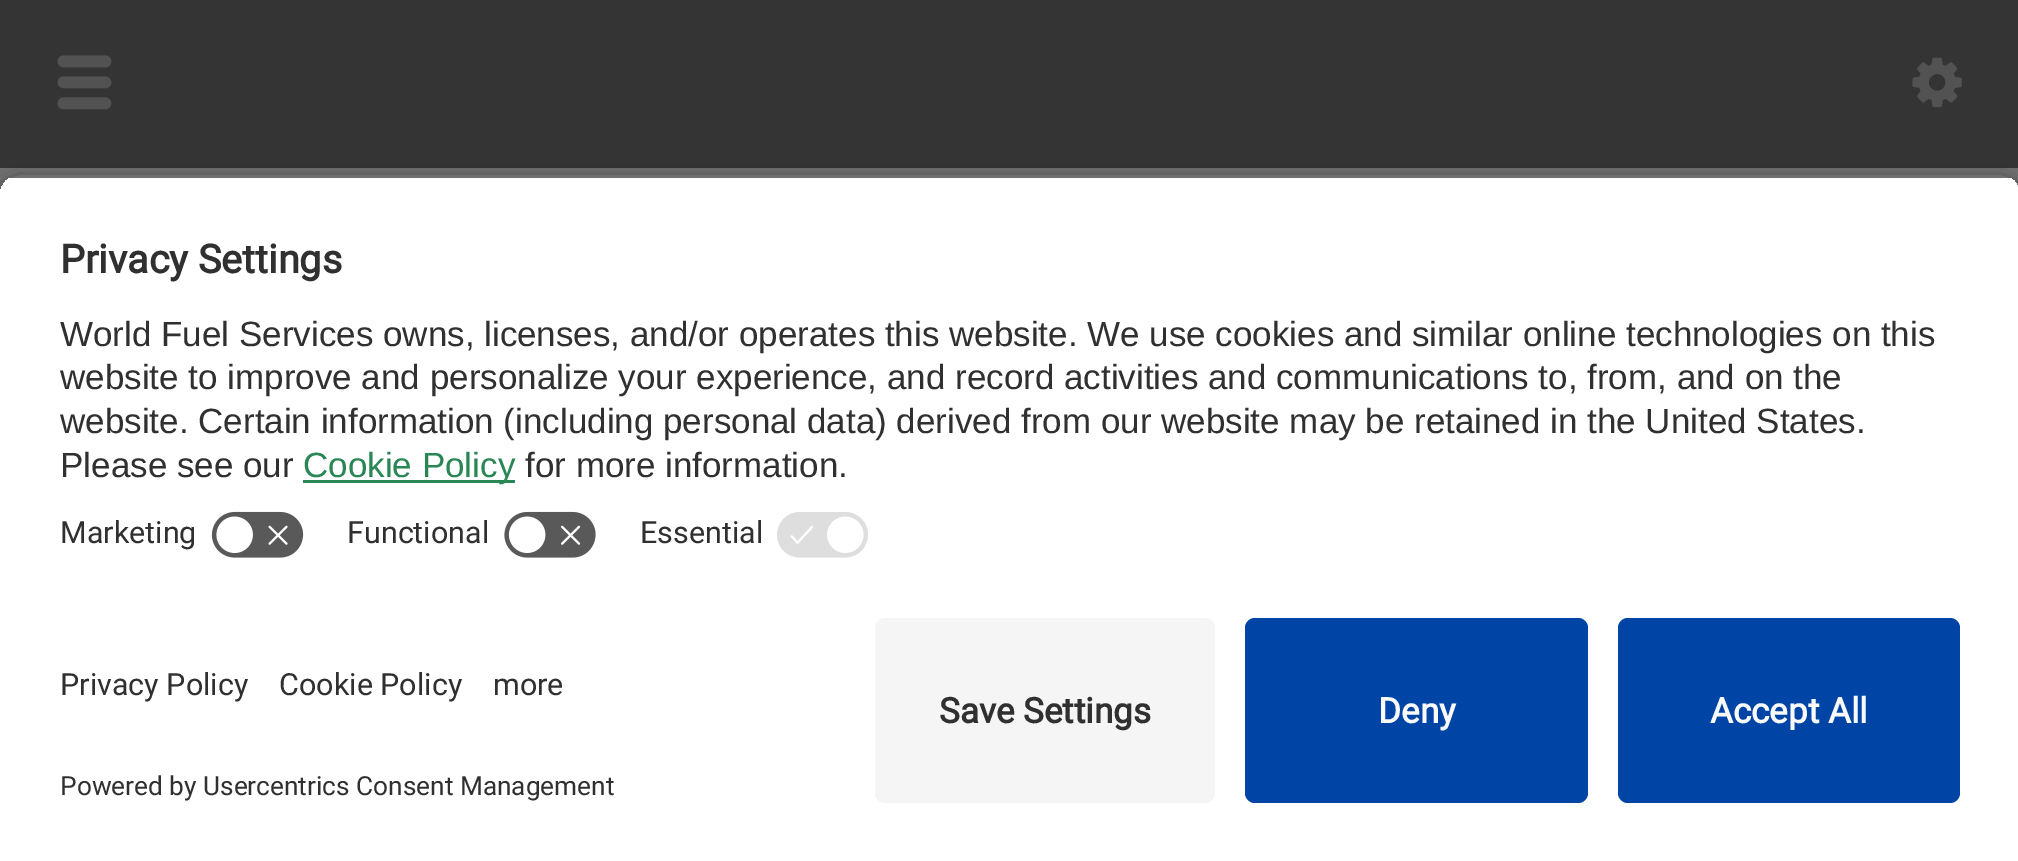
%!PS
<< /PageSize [2018 861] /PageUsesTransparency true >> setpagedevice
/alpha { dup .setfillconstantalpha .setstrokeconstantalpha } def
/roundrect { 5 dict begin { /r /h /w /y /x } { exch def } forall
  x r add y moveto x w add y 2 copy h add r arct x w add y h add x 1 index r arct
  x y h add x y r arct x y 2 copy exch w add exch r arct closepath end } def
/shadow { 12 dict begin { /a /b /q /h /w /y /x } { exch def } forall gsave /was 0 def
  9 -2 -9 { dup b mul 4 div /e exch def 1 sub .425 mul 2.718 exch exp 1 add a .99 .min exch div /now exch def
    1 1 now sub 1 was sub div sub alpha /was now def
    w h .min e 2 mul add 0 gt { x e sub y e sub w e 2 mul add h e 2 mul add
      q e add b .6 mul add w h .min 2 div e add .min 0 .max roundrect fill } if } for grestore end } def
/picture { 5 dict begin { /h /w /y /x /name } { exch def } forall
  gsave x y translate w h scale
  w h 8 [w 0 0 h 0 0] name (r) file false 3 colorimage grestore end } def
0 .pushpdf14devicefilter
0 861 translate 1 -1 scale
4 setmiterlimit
0.439 setgray
0 0 2018 861 rectfill
0.204 setgray
0 0 2018 168 rectfill
(img1.rgb) 57 55 55 55 picture
(img2.rgb) 1912 57 50 51 picture
gsave
newpath 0 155 moveto 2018 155 lineto 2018 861 lineto 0 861 lineto closepath 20 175 moveto 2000 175 lineto 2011 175 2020 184 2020 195 curveto 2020 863 lineto 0 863 lineto 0 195 lineto 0 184 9 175 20 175 curveto closepath eoclip newpath
0 setgray
0 183 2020 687 20 9 0.8 shadow
grestore
gsave
newpath 20 175 moveto 2000 175 lineto 2011 175 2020 184 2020 195 curveto 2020 598 lineto 0 598 lineto 0 195 lineto 0 184 9 175 20 175 curveto closepath clip newpath
1 setgray
0 178 2018 420 rectfill
0 178 2018 320 rectfill
grestore
/Roboto-Bold [39.5 0 0 -39.5 0 0] selectfont
0.188 setgray
60 273 moveto (Privacy Settings) show
/LiberationSans-Regular [35 0 0 -35 0 0] selectfont
60 346 moveto (World Fuel Services owns, licenses, and/or operates this website. We use cookies and similar online technologies on this) show
60 389 moveto (website to improve and personalize your experience, and record activities and communications to, from, and on the) show
60 433 moveto (website. Certain information \(including personal data\) derived from our website may be retained in the United States.) show
60 477 moveto (Please see our) show
0.161 0.525 0.333 setrgbcolor
303 480 212 3 rectfill
303 477 moveto (Cookie Policy) show
0.188 setgray
525 477 moveto (for more information.) show
/Roboto-Regular [30.5 0 0 -30.5 0 0] selectfont
60 543 moveto (Marketing) show
(img3.rgb) 211 511 93 47 picture
347 543 moveto (Functional) show
(img4.rgb) 504 511 92 47 picture
640 543 moveto (Essential) show
(img5.rgb) 777 512 91 46 picture
1 setgray
0 598 2018 263 rectfill
0.188 setgray
60 695 moveto (Privacy Policy) show
279 695 moveto (Cookie Policy) show
493 695 moveto (more) show
/Roboto-Regular [26.25 0 0 -26.25 0 0] selectfont
60 795 moveto (Powered by Usercentrics Consent Management) show
0.961 setgray
875 618 340 185 10 roundrect fill
/Roboto-Bold [35 0 0 -35 0 0] selectfont
0.188 setgray
939 723 moveto (Save Settings) show
0 0.271 0.647 setrgbcolor
1245 618 343 185 10 roundrect fill
0.98 setgray
1378 723 moveto (Deny) show
0 0.271 0.647 setrgbcolor
1618 618 342 185 10 roundrect fill
0.98 setgray
1710 723 moveto (Accept All) show
.poppdf14devicefilter showpage
